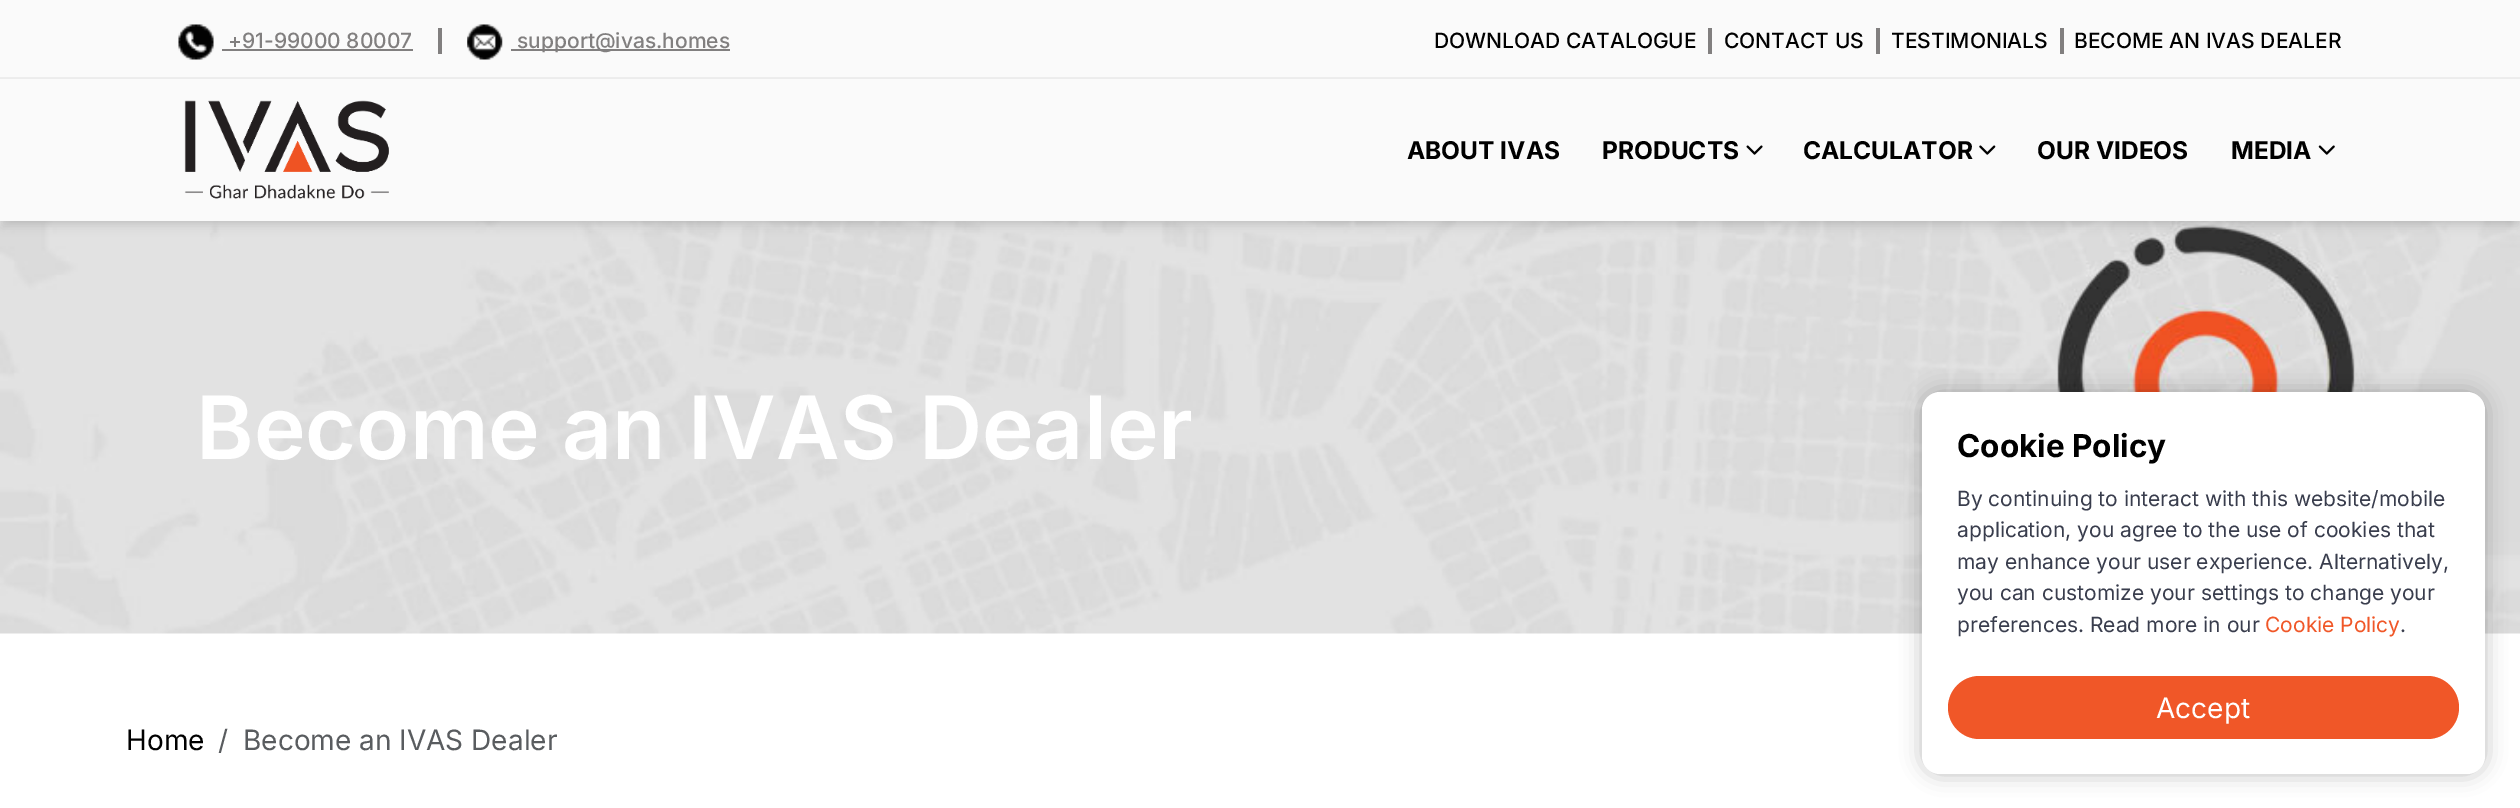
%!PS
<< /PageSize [2520 808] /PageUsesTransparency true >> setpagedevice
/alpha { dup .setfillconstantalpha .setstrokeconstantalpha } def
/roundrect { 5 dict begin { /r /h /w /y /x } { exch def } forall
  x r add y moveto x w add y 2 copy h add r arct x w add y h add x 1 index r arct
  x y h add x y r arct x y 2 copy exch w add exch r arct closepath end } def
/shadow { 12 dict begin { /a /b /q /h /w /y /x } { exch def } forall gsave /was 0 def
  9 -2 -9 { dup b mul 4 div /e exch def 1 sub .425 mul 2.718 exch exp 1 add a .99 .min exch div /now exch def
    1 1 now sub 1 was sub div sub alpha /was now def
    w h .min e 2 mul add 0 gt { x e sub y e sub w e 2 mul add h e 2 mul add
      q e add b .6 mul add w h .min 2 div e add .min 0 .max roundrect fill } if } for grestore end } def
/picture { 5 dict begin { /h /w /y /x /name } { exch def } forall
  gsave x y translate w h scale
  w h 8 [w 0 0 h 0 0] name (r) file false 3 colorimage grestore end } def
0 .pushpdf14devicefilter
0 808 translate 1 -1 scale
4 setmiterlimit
1 setgray
0 0 2520 808 rectfill
0.98 setgray
0 0 2520 77 rectfill
0.933 setgray
0 77 2520 2 rectfill
(img1.rgb) 178 24 36 36 picture
/Inter-Medium [21 0 0 -21 0 0] selectfont
0.506 0.498 0.498 setrgbcolor
228 48 moveto (+91-99000 80007) show
222 49 191 2 rectfill
438 28 4 26 rectfill
(img2.rgb) 467 24 36 36 picture
511 49 219 2 rectfill
517 48 moveto (support@ivas.homes) show
0 setgray
1434 48 moveto (DOWNLOAD CATALOGUE) show
0.506 0.498 0.498 setrgbcolor
1708 28 4 26 rectfill
0 setgray
1724 48 moveto (CONTACT US) show
0.506 0.498 0.498 setrgbcolor
1876 28 4 26 rectfill
0 setgray
1891 48 moveto (TESTIMONIALS) show
0.506 0.498 0.498 setrgbcolor
2060 28 4 26 rectfill
0 setgray
2074 48 moveto (BECOME AN IVAS DEALER) show
(img7.rgb) 0 221 2520 413 picture
2 84 2516 138 0 3.5 0.06 shadow
2 88 2516 138 0 5 0.1 shadow
0.98 setgray
0 79 2520 142 rectfill
(img3.rgb) 184 100 205 99 picture
/Inter-Bold [24.5 0 0 -24.5 0 0] selectfont
0 setgray
1407 159 moveto (ABOUT IVAS) show
1602 159 moveto (PRODUCTS) show
(img4.rgb) 1746 145 17 10 picture
1803 159 moveto (CALCULATOR) show
(img5.rgb) 1979 145 17 10 picture
2037 159 moveto (OUR VIDEOS) show
2231 159 moveto (MEDIA) show
(img6.rgb) 2318 145 17 10 picture
/Inter-SemiBold [87.5 0 0 -87.5 0 0] selectfont
1 setgray
196 459 moveto (Become an IVAS Dealer) show
0 setgray
1922 392 563 382 18 10.5 0.25 shadow
1 setgray
1922 392 563 382 18 roundrect fill
/Inter-Bold [31.5 0 0 -31.5 0 0] selectfont
0 setgray
1957 457 moveto (Cookie Policy) show
/Inter-Regular [21 0 0 -21 0 0] selectfont
0.224 0.239 0.302 setrgbcolor
1957 506 moveto (By continuing to interact with this website/mobile) show
1957 537 moveto (application, you agree to the use of cookies that) show
1957 569 moveto (may enhance your user experience. Alternatively,) show
1957 600 moveto (you can customize your settings to change your) show
1957 632 moveto (preferences. Read more in our) show
0.941 0.341 0.157 setrgbcolor
2265 632 moveto (Cookie Policy) show
0.224 0.239 0.302 setrgbcolor
2400 632 moveto (.) show
0.941 0.341 0.157 setrgbcolor
1948 676 511 63 31.5 roundrect fill
/Inter-Regular [28 0 0 -28 0 0] selectfont
1 setgray
2156 718 moveto (Accept) show
0 setgray
126 750 moveto (Home) show
0.349 0.361 0.373 setrgbcolor
218 750 moveto (/) show
243 750 moveto (Become an IVAS Dealer) show
.poppdf14devicefilter showpage
